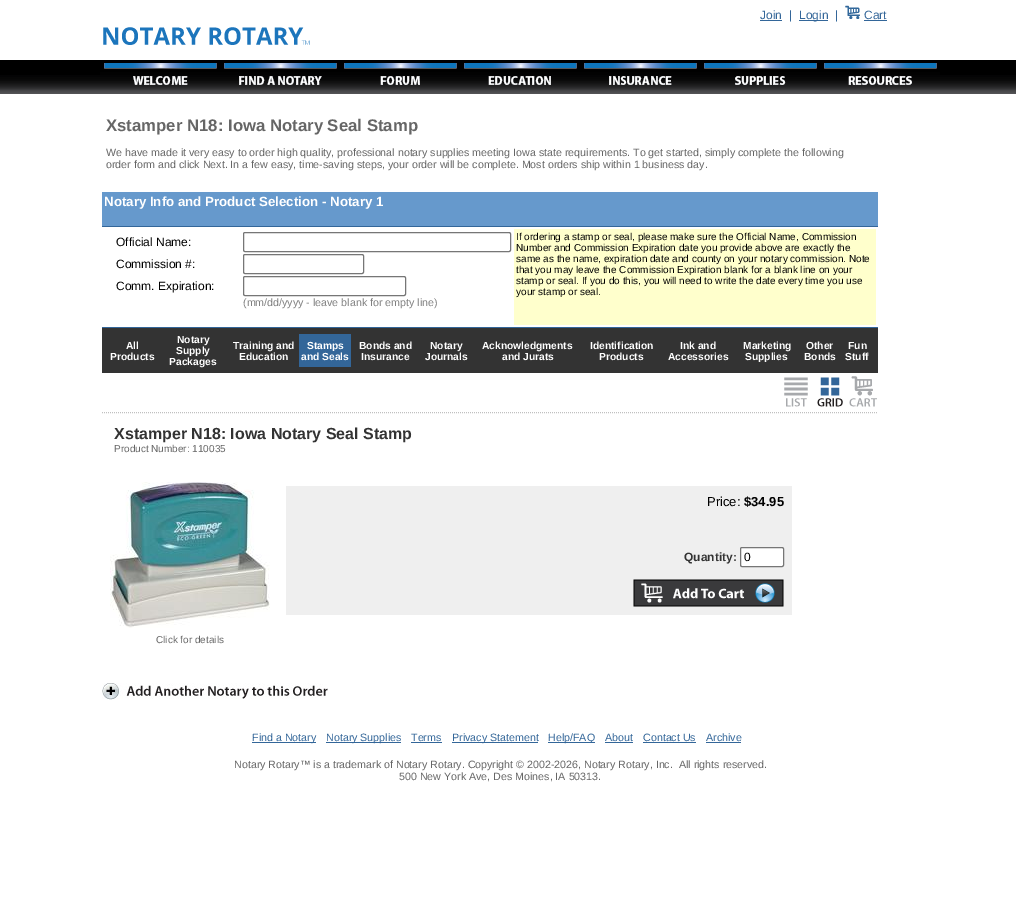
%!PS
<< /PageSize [1016 922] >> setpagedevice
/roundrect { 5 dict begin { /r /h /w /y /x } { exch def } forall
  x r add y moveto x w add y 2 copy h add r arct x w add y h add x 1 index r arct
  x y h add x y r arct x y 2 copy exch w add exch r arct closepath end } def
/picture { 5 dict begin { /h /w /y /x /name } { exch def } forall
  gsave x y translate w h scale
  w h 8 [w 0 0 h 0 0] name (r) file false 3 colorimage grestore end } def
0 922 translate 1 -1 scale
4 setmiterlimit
1 setgray
0 0 1016 922 rectfill
0 setgray
0 60 100 15 rectfill
(img1.rgb) 0 75 100 19 picture
/LiberationSans-Regular [12 0 0 -12 0 0] selectfont
0.2 0.4 0.6 setrgbcolor
760 19 moveto (Join) show
760 20 22 1 rectfill
789 19 moveto (|) show
799 20 29 1 rectfill
799 19 moveto (Login) show
835 19 moveto (|) show
(img2.rgb) 845 5 15 14 picture
864 19 moveto (Cart) show
864 20 23 1 rectfill
(img3.rgb) 103 27 207 18 picture
(img4.rgb) 100 60 120 34 picture
(img5.rgb) 220 60 120 34 picture
(img6.rgb) 340 60 120 34 picture
(img7.rgb) 460 60 120 34 picture
(img8.rgb) 580 60 120 34 picture
(img9.rgb) 700 60 120 34 picture
(img10.rgb) 820 60 120 34 picture
0 setgray
940 60 76 15 rectfill
(img11.rgb) 940 75 76 19 picture
/LiberationSans-Bold [16.75 0 0 -16.75 0 0] selectfont
0.4 setgray
106 131 moveto (Xstamper N18: Iowa Notary Seal Stamp) show
/LiberationSans-Regular [10.67 0 0 -10.67 0 0] selectfont
106 156 moveto (We have made it very easy to order high quality, professional notary supplies meeting Iowa state requirements. To get started, simply complete the following) show
106 168 moveto (order form and click Next. In a few easy, time-saving steps, your order will be complete. Most orders ship within 1 business day.) show
0.4 0.6 0.8 setrgbcolor
102 192 776 34 rectfill
0.2 0.4 0.6 setrgbcolor
102 226 776 1 rectfill
/LiberationSans-Bold [13.3 0 0 -13.3 0 0] selectfont
1 setgray
104 206 moveto (Notary Info and Product Selection - Notary 1) show
0.2 0.4 0.6 setrgbcolor
102 327 776 1 rectfill
/LiberationSans-Regular [12 0 0 -12 0 0] selectfont
0 setgray
116 246 moveto (Official Name:) show
0.463 setgray
243.5 232.5 267 19 1.5 roundrect stroke
0 setgray
116 268 moveto (Commission #:) show
0.463 setgray
243.5 254.5 120 19 1.5 roundrect stroke
0 setgray
116 290 moveto (Comm. Expiration:) show
0.463 setgray
243.5 276.5 162 19 1.5 roundrect stroke
/LiberationSans-Regular [10.67 0 0 -10.67 0 0] selectfont
0.502 setgray
243 306 moveto (\(mm/dd/yyyy - leave blank for empty line\)) show
1 1 0.8 setrgbcolor
514 229 362 96 rectfill
/LiberationSans-Regular [10 0 0 -10 0 0] selectfont
0 setgray
516 240 moveto (If ordering a stamp or seal, please make sure the Official Name, Commission) show
516 251 moveto (Number and Commission Expiration date you provide above are exactly the) show
516 262 moveto (same as the name, expiration date and county on your notary commission. Note) show
516 273 moveto (that you may leave the Commission Expiration blank for a blank line on your) show
516 284 moveto (stamp or seal. If you do this, you will need to write the date every time you use) show
516 295 moveto (your stamp or seal.) show
0.2 setgray
102 328 776 45 rectfill
/LiberationSans-Bold [10.25 0 0 -10.25 0 0] selectfont
1 setgray
126 349 moveto (All) show
110 360 moveto (Products) show
177 343 moveto (Notary) show
176 354 moveto (Supply) show
169 365 moveto (Packages) show
233 349 moveto (Training and) show
239 360 moveto (Education) show
0.2 0.4 0.6 setrgbcolor
299 334 52 33 rectfill
1 setgray
307 349 moveto (Stamps) show
301 360 moveto (and Seals) show
359 349 moveto (Bonds and) show
361 360 moveto (Insurance) show
430 349 moveto (Notary) show
425 360 moveto (Journals) show
482 349 moveto (Acknowledgments) show
502 360 moveto (and Jurats) show
590 349 moveto (Identification) show
599 360 moveto (Products) show
680 349 moveto (Ink and) show
668 360 moveto (Accessories) show
743 349 moveto (Marketing) show
745 360 moveto (Supplies) show
806 349 moveto (Other) show
804 360 moveto (Bonds) show
848 349 moveto (Fun) show
845 360 moveto (Stuff) show
(img12.rgb) 784 377 24 30 picture
(img13.rgb) 817 377 26 30 picture
(img14.rgb) 849 376 28 31 picture
0.753 setgray
[1 1] 0 setdash
newpath 800 412.5 moveto 878 412.5 lineto stroke
newpath 102 412.5 moveto 800 412.5 lineto stroke
/LiberationSans-Bold [16 0 0 -16 0 0] selectfont
0.2 setgray
114 439 moveto (Xstamper N18: Iowa Notary Seal Stamp) show
/LiberationSans-Regular [10 0 0 -10 0 0] selectfont
0.4 setgray
114 452 moveto (Product Number: 110035) show
0.937 setgray
286 486 506 129 rectfill
/LiberationSans-Regular [13 0 0 -13 0 0] selectfont
0 setgray
707 506 moveto (Price:) show
/LiberationSans-Bold [13 0 0 -13 0 0] selectfont
744 506 moveto ($34.95) show
/LiberationSans-Bold [12 0 0 -12 0 0] selectfont
0.2 setgray
684 561 moveto (Quantity:) show
1 setgray
740.5 547.5 43 19 1.5 roundrect gsave fill grestore
0.463 setgray
[] 0 setdash
stroke
/LiberationSans-Regular [12 0 0 -12 0 0] selectfont
0 setgray
744 561 moveto (0) show
(img15.rgb) 633 579 151 28 picture
(img16.rgb) 110 482 160 146 picture
/LiberationSans-Regular [10 0 0 -10 0 0] selectfont
0.4 setgray
156 643 moveto (Click for details) show
(img17.rgb) 102 683 226 17 picture
0.2 0.4 0.6 setrgbcolor
252 742 64 1 rectfill
/LiberationSans-Regular [10.67 0 0 -10.67 0 0] selectfont
252 741 moveto (Find a Notary) show
326 742 75 1 rectfill
326 741 moveto (Notary Supplies) show
411 741 moveto (Terms) show
411 742 31 1 rectfill
452 742 86 1 rectfill
452 741 moveto (Privacy Statement) show
548 742 47 1 rectfill
548 741 moveto (Help/FAQ) show
605 741 moveto (About) show
605 742 28 1 rectfill
643 741 moveto (Contact Us) show
643 742 53 1 rectfill
706 741 moveto (Archive) show
706 742 35 1 rectfill
0.4 setgray
234 768 moveto (Notary Rotary™ is a trademark of Notary Rotary. Copyright © 2002-2026, Notary Rotary, Inc.  All rights reserved.) show
399 780 moveto (500 New York Ave, Des Moines, IA 50313.) show
showpage
